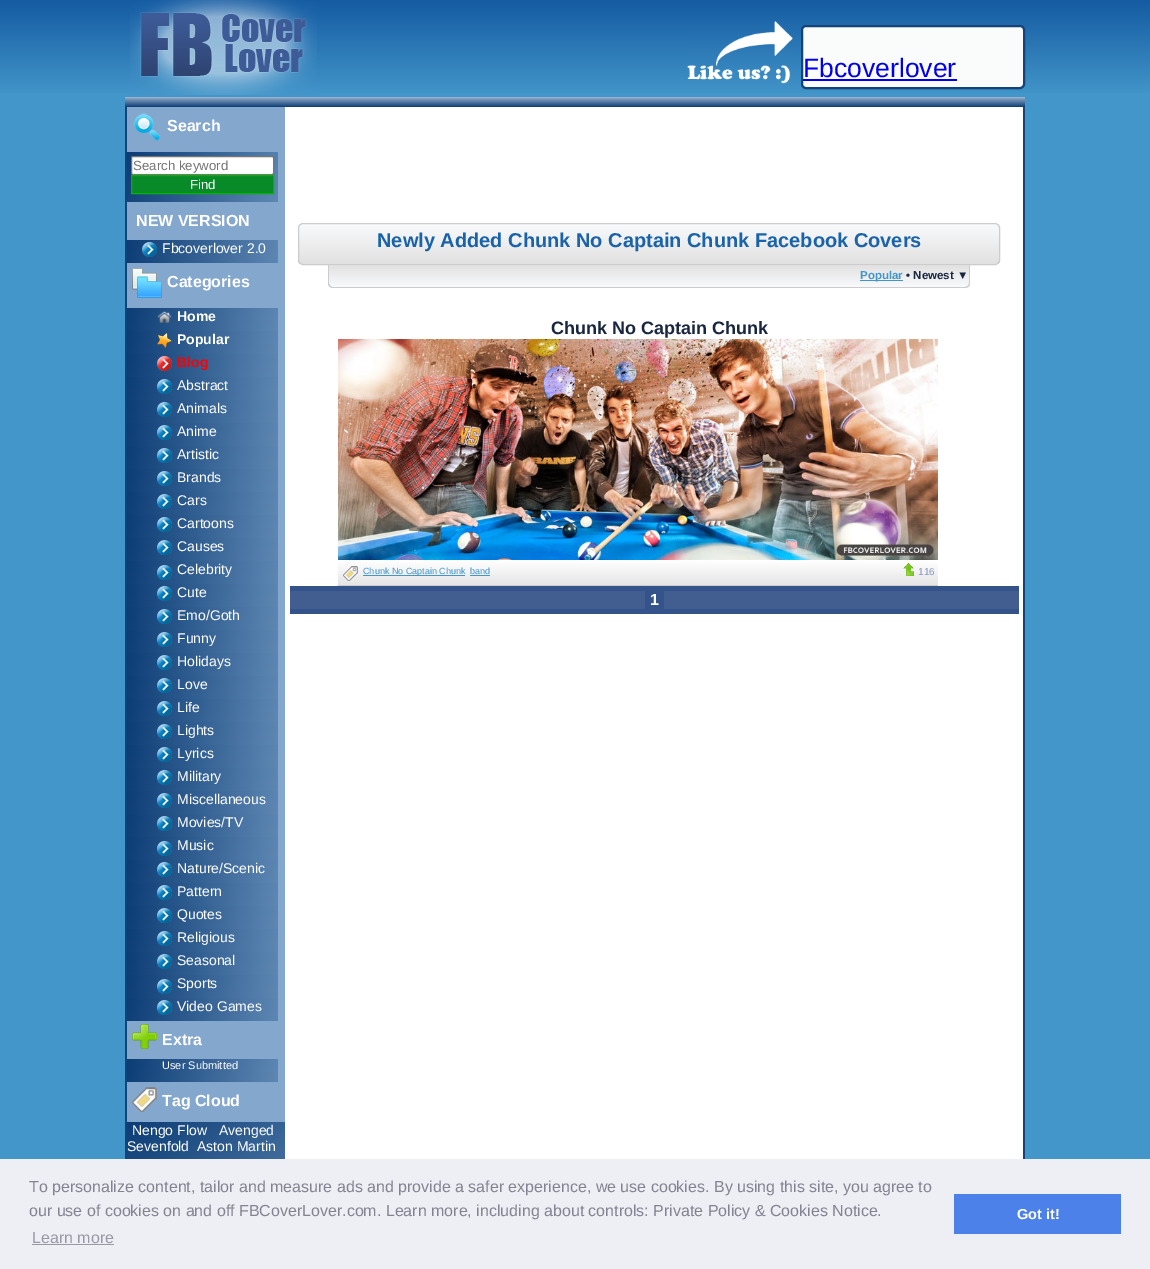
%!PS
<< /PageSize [1150 1269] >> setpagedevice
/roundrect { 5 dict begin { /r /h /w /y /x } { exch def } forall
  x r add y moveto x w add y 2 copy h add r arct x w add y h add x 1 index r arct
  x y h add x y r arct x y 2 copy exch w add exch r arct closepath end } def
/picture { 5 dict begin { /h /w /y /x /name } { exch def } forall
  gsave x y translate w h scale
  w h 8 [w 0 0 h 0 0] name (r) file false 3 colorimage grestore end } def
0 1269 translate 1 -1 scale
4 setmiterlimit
0.263 0.588 0.792 setrgbcolor
0 0 1150 1269 rectfill
gsave newpath 0 0 moveto 1150 0 lineto 1150 93 lineto 0 93 lineto closepath clip newpath
<< /ShadingType 2 /ColorSpace /DeviceRGB /Coords [0 -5 0 97] /Extend [true true] /Function << /FunctionType 2 /Domain [0 1] /C0 [0.071 0.345 0.627] /C1 [0.263 0.588 0.792] /N 1 >> >> shfill grestore
(img1.rgb) 130 0 187 95 picture
(img2.rgb) 687 21 106 63 picture
0.98 0.984 0.984 setrgbcolor
802 26 222 62 4 roundrect gsave fill grestore
0.075 0.263 0.475 setrgbcolor
2 setlinewidth
stroke
/LiberationSans-Regular [26.5 0 0 -26.5 0 0] selectfont
0 0 0.933 setrgbcolor
803 77 moveto (Fbcoverlover) show
803 79 154 2 rectfill
gsave newpath 127 97 moveto 1023 97 lineto 1024 97 1025 98 1025 99 curveto 1025 107 lineto 125 107 lineto 125 99 lineto 125 98 126 97 127 97 curveto closepath clip newpath
<< /ShadingType 2 /ColorSpace /DeviceRGB /Coords [125 107 125 97] /Extend [true true] /Function << /FunctionType 2 /Domain [0 1] /C0 [0.047 0.239 0.459] /C1 [0.604 0.698 0.804] /N 1 >> >> shfill grestore
1 setgray
285 107 738 1052 rectfill
0.075 0.263 0.475 setrgbcolor
1023 107 2 1052 rectfill
125 107 2 1052 rectfill
0.518 0.655 0.808 setrgbcolor
127 107 158 201 rectfill
(img3.rgb) 134 113 26 28 picture
/LiberationSans-Bold [16 0 0 -16 0 0] selectfont
1 setgray
167 131 moveto (Search) show
gsave newpath 127 152 moveto 278 152 lineto 278 202 lineto 127 202 lineto closepath clip newpath
<< /ShadingType 2 /ColorSpace /DeviceRGB /Coords [127 152 285 202] /Extend [true true] /Function << /FunctionType 2 /Domain [0 1] /C0 [0.047 0.239 0.459] /C1 [0.384 0.541 0.714] /N 1 >> >> shfill grestore
131.5 156.5 142 18 1.5 roundrect gsave fill grestore
0.463 setgray
1 setlinewidth
stroke
/LiberationSans-Regular [13.25 0 0 -13.25 0 0] selectfont
0.459 setgray
133 170 moveto (Search keyword) show
0.031 0.541 0.161 setrgbcolor
newpath 131.5 175.5 moveto 273.5 175.5 lineto 273.5 193.5 lineto 131.5 193.5 lineto closepath gsave fill grestore
0.016 0.706 0.016 setrgbcolor
stroke
1 setgray
190 189 moveto (Find) show
/LiberationSans-Bold [16 0 0 -16 0 0] selectfont
136 226 moveto (NEW VERSION) show
gsave newpath 127 240 moveto 278 240 lineto 278 263 lineto 127 263 lineto closepath clip newpath
<< /ShadingType 2 /ColorSpace /DeviceRGB /Coords [127 240 285 263] /Extend [true true] /Function << /FunctionType 2 /Domain [0 1] /C0 [0.047 0.239 0.459] /C1 [0.384 0.541 0.714] /N 1 >> >> shfill grestore
(img4.rgb) 142 242 15 15 picture
/LiberationSans-Regular [14 0 0 -14 0 0] selectfont
162 253 moveto (Fbcoverlover 2.0) show
(img5.rgb) 132 268 30 30 picture
/LiberationSans-Bold [16 0 0 -16 0 0] selectfont
167 287 moveto (Categories) show
gsave newpath 127 308 moveto 278 308 lineto 278 331 lineto 127 331 lineto closepath clip newpath
<< /ShadingType 2 /ColorSpace /DeviceRGB /Coords [127 308 285 331] /Extend [true true] /Function << /FunctionType 2 /Domain [0 1] /C0 [0.047 0.239 0.459] /C1 [0.384 0.541 0.714] /N 1 >> >> shfill grestore
(img6.rgb) 157 311 15 12 picture
/LiberationSans-Bold [14 0 0 -14 0 0] selectfont
177 321 moveto (Home) show
0.518 0.655 0.808 setrgbcolor
278 308 7 713 rectfill
gsave newpath 127 331 moveto 278 331 lineto 278 354 lineto 127 354 lineto closepath clip newpath
<< /ShadingType 2 /ColorSpace /DeviceRGB /Coords [127 331 285 354] /Extend [true true] /Function << /FunctionType 2 /Domain [0 1] /C0 [0.047 0.239 0.459] /C1 [0.384 0.541 0.714] /N 1 >> >> shfill grestore
(img7.rgb) 157 333 15 15 picture
1 setgray
177 344 moveto (Popular) show
gsave newpath 127 354 moveto 278 354 lineto 278 377 lineto 127 377 lineto closepath clip newpath
<< /ShadingType 2 /ColorSpace /DeviceRGB /Coords [127 354 285 377] /Extend [true true] /Function << /FunctionType 2 /Domain [0 1] /C0 [0.047 0.239 0.459] /C1 [0.384 0.541 0.714] /N 1 >> >> shfill grestore
(img8.rgb) 157 356 15 15 picture
0.996 0 0 setrgbcolor
177 367 moveto (Blog) show
gsave newpath 127 377 moveto 278 377 lineto 278 400 lineto 127 400 lineto closepath clip newpath
<< /ShadingType 2 /ColorSpace /DeviceRGB /Coords [127 377 285 400] /Extend [true true] /Function << /FunctionType 2 /Domain [0 1] /C0 [0.047 0.239 0.459] /C1 [0.384 0.541 0.714] /N 1 >> >> shfill grestore
(img9.rgb) 157 379 15 15 picture
/LiberationSans-Regular [14 0 0 -14 0 0] selectfont
1 setgray
177 390 moveto (Abstract) show
gsave newpath 127 400 moveto 278 400 lineto 278 423 lineto 127 423 lineto closepath clip newpath
<< /ShadingType 2 /ColorSpace /DeviceRGB /Coords [127 400 285 423] /Extend [true true] /Function << /FunctionType 2 /Domain [0 1] /C0 [0.047 0.239 0.459] /C1 [0.384 0.541 0.714] /N 1 >> >> shfill grestore
(img9.rgb) 157 402 15 15 picture
177 413 moveto (Animals) show
gsave newpath 127 423 moveto 278 423 lineto 278 446 lineto 127 446 lineto closepath clip newpath
<< /ShadingType 2 /ColorSpace /DeviceRGB /Coords [127 423 285 446] /Extend [true true] /Function << /FunctionType 2 /Domain [0 1] /C0 [0.047 0.239 0.459] /C1 [0.384 0.541 0.714] /N 1 >> >> shfill grestore
(img9.rgb) 157 425 15 15 picture
177 436 moveto (Anime) show
gsave newpath 127 446 moveto 278 446 lineto 278 469 lineto 127 469 lineto closepath clip newpath
<< /ShadingType 2 /ColorSpace /DeviceRGB /Coords [127 446 285 469] /Extend [true true] /Function << /FunctionType 2 /Domain [0 1] /C0 [0.047 0.239 0.459] /C1 [0.384 0.541 0.714] /N 1 >> >> shfill grestore
(img9.rgb) 157 448 15 15 picture
177 459 moveto (Artistic) show
gsave newpath 127 469 moveto 278 469 lineto 278 492 lineto 127 492 lineto closepath clip newpath
<< /ShadingType 2 /ColorSpace /DeviceRGB /Coords [127 469 285 492] /Extend [true true] /Function << /FunctionType 2 /Domain [0 1] /C0 [0.047 0.239 0.459] /C1 [0.384 0.541 0.714] /N 1 >> >> shfill grestore
(img9.rgb) 157 471 15 15 picture
177 482 moveto (Brands) show
gsave newpath 127 492 moveto 278 492 lineto 278 515 lineto 127 515 lineto closepath clip newpath
<< /ShadingType 2 /ColorSpace /DeviceRGB /Coords [127 492 285 515] /Extend [true true] /Function << /FunctionType 2 /Domain [0 1] /C0 [0.047 0.239 0.459] /C1 [0.384 0.541 0.714] /N 1 >> >> shfill grestore
(img9.rgb) 157 494 15 15 picture
177 505 moveto (Cars) show
gsave newpath 127 515 moveto 278 515 lineto 278 538 lineto 127 538 lineto closepath clip newpath
<< /ShadingType 2 /ColorSpace /DeviceRGB /Coords [127 515 285 538] /Extend [true true] /Function << /FunctionType 2 /Domain [0 1] /C0 [0.047 0.239 0.459] /C1 [0.384 0.541 0.714] /N 1 >> >> shfill grestore
(img9.rgb) 157 517 15 15 picture
177 528 moveto (Cartoons) show
gsave newpath 127 538 moveto 278 538 lineto 278 561 lineto 127 561 lineto closepath clip newpath
<< /ShadingType 2 /ColorSpace /DeviceRGB /Coords [127 538 285 561] /Extend [true true] /Function << /FunctionType 2 /Domain [0 1] /C0 [0.047 0.239 0.459] /C1 [0.384 0.541 0.714] /N 1 >> >> shfill grestore
(img9.rgb) 157 540 15 15 picture
177 551 moveto (Causes) show
gsave newpath 127 561 moveto 278 561 lineto 278 584 lineto 127 584 lineto closepath clip newpath
<< /ShadingType 2 /ColorSpace /DeviceRGB /Coords [127 561 285 584] /Extend [true true] /Function << /FunctionType 2 /Domain [0 1] /C0 [0.047 0.239 0.459] /C1 [0.384 0.541 0.714] /N 1 >> >> shfill grestore
(img10.rgb) 157 565 15 15 picture
177 574 moveto (Celebrity) show
gsave newpath 127 584 moveto 278 584 lineto 278 607 lineto 127 607 lineto closepath clip newpath
<< /ShadingType 2 /ColorSpace /DeviceRGB /Coords [127 584 285 607] /Extend [true true] /Function << /FunctionType 2 /Domain [0 1] /C0 [0.047 0.239 0.459] /C1 [0.384 0.541 0.714] /N 1 >> >> shfill grestore
(img9.rgb) 157 586 15 15 picture
177 597 moveto (Cute) show
gsave newpath 127 607 moveto 278 607 lineto 278 630 lineto 127 630 lineto closepath clip newpath
<< /ShadingType 2 /ColorSpace /DeviceRGB /Coords [127 607 285 630] /Extend [true true] /Function << /FunctionType 2 /Domain [0 1] /C0 [0.047 0.239 0.459] /C1 [0.384 0.541 0.714] /N 1 >> >> shfill grestore
(img9.rgb) 157 609 15 15 picture
177 620 moveto (Emo/Goth) show
gsave newpath 127 630 moveto 278 630 lineto 278 653 lineto 127 653 lineto closepath clip newpath
<< /ShadingType 2 /ColorSpace /DeviceRGB /Coords [127 630 285 653] /Extend [true true] /Function << /FunctionType 2 /Domain [0 1] /C0 [0.047 0.239 0.459] /C1 [0.384 0.541 0.714] /N 1 >> >> shfill grestore
(img9.rgb) 157 632 15 15 picture
177 643 moveto (Funny) show
gsave newpath 127 653 moveto 278 653 lineto 278 676 lineto 127 676 lineto closepath clip newpath
<< /ShadingType 2 /ColorSpace /DeviceRGB /Coords [127 653 285 676] /Extend [true true] /Function << /FunctionType 2 /Domain [0 1] /C0 [0.047 0.239 0.459] /C1 [0.384 0.541 0.714] /N 1 >> >> shfill grestore
(img9.rgb) 157 655 15 15 picture
177 666 moveto (Holidays) show
gsave newpath 127 676 moveto 278 676 lineto 278 699 lineto 127 699 lineto closepath clip newpath
<< /ShadingType 2 /ColorSpace /DeviceRGB /Coords [127 676 285 699] /Extend [true true] /Function << /FunctionType 2 /Domain [0 1] /C0 [0.047 0.239 0.459] /C1 [0.384 0.541 0.714] /N 1 >> >> shfill grestore
(img9.rgb) 157 678 15 15 picture
177 689 moveto (Love) show
gsave newpath 127 699 moveto 278 699 lineto 278 722 lineto 127 722 lineto closepath clip newpath
<< /ShadingType 2 /ColorSpace /DeviceRGB /Coords [127 699 285 722] /Extend [true true] /Function << /FunctionType 2 /Domain [0 1] /C0 [0.047 0.239 0.459] /C1 [0.384 0.541 0.714] /N 1 >> >> shfill grestore
(img9.rgb) 157 701 15 15 picture
177 712 moveto (Life) show
gsave newpath 127 722 moveto 278 722 lineto 278 745 lineto 127 745 lineto closepath clip newpath
<< /ShadingType 2 /ColorSpace /DeviceRGB /Coords [127 722 285 745] /Extend [true true] /Function << /FunctionType 2 /Domain [0 1] /C0 [0.047 0.239 0.459] /C1 [0.384 0.541 0.714] /N 1 >> >> shfill grestore
(img9.rgb) 157 724 15 15 picture
177 735 moveto (Lights) show
gsave newpath 127 745 moveto 278 745 lineto 278 768 lineto 127 768 lineto closepath clip newpath
<< /ShadingType 2 /ColorSpace /DeviceRGB /Coords [127 745 285 768] /Extend [true true] /Function << /FunctionType 2 /Domain [0 1] /C0 [0.047 0.239 0.459] /C1 [0.384 0.541 0.714] /N 1 >> >> shfill grestore
(img9.rgb) 157 747 15 15 picture
177 758 moveto (Lyrics) show
gsave newpath 127 768 moveto 278 768 lineto 278 791 lineto 127 791 lineto closepath clip newpath
<< /ShadingType 2 /ColorSpace /DeviceRGB /Coords [127 768 285 791] /Extend [true true] /Function << /FunctionType 2 /Domain [0 1] /C0 [0.047 0.239 0.459] /C1 [0.384 0.541 0.714] /N 1 >> >> shfill grestore
(img9.rgb) 157 770 15 15 picture
177 781 moveto (Military) show
gsave newpath 127 791 moveto 278 791 lineto 278 814 lineto 127 814 lineto closepath clip newpath
<< /ShadingType 2 /ColorSpace /DeviceRGB /Coords [127 791 285 814] /Extend [true true] /Function << /FunctionType 2 /Domain [0 1] /C0 [0.047 0.239 0.459] /C1 [0.384 0.541 0.714] /N 1 >> >> shfill grestore
(img9.rgb) 157 793 15 15 picture
177 804 moveto (Miscellaneous) show
gsave newpath 127 814 moveto 278 814 lineto 278 837 lineto 127 837 lineto closepath clip newpath
<< /ShadingType 2 /ColorSpace /DeviceRGB /Coords [127 814 285 837] /Extend [true true] /Function << /FunctionType 2 /Domain [0 1] /C0 [0.047 0.239 0.459] /C1 [0.384 0.541 0.714] /N 1 >> >> shfill grestore
(img9.rgb) 157 816 15 15 picture
177 827 moveto (Movies/TV) show
gsave newpath 127 837 moveto 278 837 lineto 278 860 lineto 127 860 lineto closepath clip newpath
<< /ShadingType 2 /ColorSpace /DeviceRGB /Coords [127 837 285 860] /Extend [true true] /Function << /FunctionType 2 /Domain [0 1] /C0 [0.047 0.239 0.459] /C1 [0.384 0.541 0.714] /N 1 >> >> shfill grestore
(img10.rgb) 157 841 15 15 picture
177 850 moveto (Music) show
gsave newpath 127 860 moveto 278 860 lineto 278 883 lineto 127 883 lineto closepath clip newpath
<< /ShadingType 2 /ColorSpace /DeviceRGB /Coords [127 860 285 883] /Extend [true true] /Function << /FunctionType 2 /Domain [0 1] /C0 [0.047 0.239 0.459] /C1 [0.384 0.541 0.714] /N 1 >> >> shfill grestore
(img9.rgb) 157 862 15 15 picture
177 873 moveto (Nature/Scenic) show
gsave newpath 127 883 moveto 278 883 lineto 278 906 lineto 127 906 lineto closepath clip newpath
<< /ShadingType 2 /ColorSpace /DeviceRGB /Coords [127 883 285 906] /Extend [true true] /Function << /FunctionType 2 /Domain [0 1] /C0 [0.047 0.239 0.459] /C1 [0.384 0.541 0.714] /N 1 >> >> shfill grestore
(img9.rgb) 157 885 15 15 picture
177 896 moveto (Pattern) show
gsave newpath 127 906 moveto 278 906 lineto 278 929 lineto 127 929 lineto closepath clip newpath
<< /ShadingType 2 /ColorSpace /DeviceRGB /Coords [127 906 285 929] /Extend [true true] /Function << /FunctionType 2 /Domain [0 1] /C0 [0.047 0.239 0.459] /C1 [0.384 0.541 0.714] /N 1 >> >> shfill grestore
(img9.rgb) 157 908 15 15 picture
177 919 moveto (Quotes) show
gsave newpath 127 929 moveto 278 929 lineto 278 952 lineto 127 952 lineto closepath clip newpath
<< /ShadingType 2 /ColorSpace /DeviceRGB /Coords [127 929 285 952] /Extend [true true] /Function << /FunctionType 2 /Domain [0 1] /C0 [0.047 0.239 0.459] /C1 [0.384 0.541 0.714] /N 1 >> >> shfill grestore
(img9.rgb) 157 931 15 15 picture
177 942 moveto (Religious) show
gsave newpath 127 952 moveto 278 952 lineto 278 975 lineto 127 975 lineto closepath clip newpath
<< /ShadingType 2 /ColorSpace /DeviceRGB /Coords [127 952 285 975] /Extend [true true] /Function << /FunctionType 2 /Domain [0 1] /C0 [0.047 0.239 0.459] /C1 [0.384 0.541 0.714] /N 1 >> >> shfill grestore
(img9.rgb) 157 954 15 15 picture
177 965 moveto (Seasonal) show
gsave newpath 127 975 moveto 278 975 lineto 278 998 lineto 127 998 lineto closepath clip newpath
<< /ShadingType 2 /ColorSpace /DeviceRGB /Coords [127 975 285 998] /Extend [true true] /Function << /FunctionType 2 /Domain [0 1] /C0 [0.047 0.239 0.459] /C1 [0.384 0.541 0.714] /N 1 >> >> shfill grestore
(img10.rgb) 157 979 15 15 picture
177 988 moveto (Sports) show
gsave newpath 127 998 moveto 278 998 lineto 278 1021 lineto 127 1021 lineto closepath clip newpath
<< /ShadingType 2 /ColorSpace /DeviceRGB /Coords [127 998 285 1021] /Extend [true true] /Function << /FunctionType 2 /Domain [0 1] /C0 [0.047 0.239 0.459] /C1 [0.384 0.541 0.714] /N 1 >> >> shfill grestore
(img9.rgb) 157 1000 15 15 picture
177 1011 moveto (Video Games) show
0.518 0.655 0.808 setrgbcolor
127 1021 158 38 rectfill
(img11.rgb) 132 1024 25 25 picture
/LiberationSans-Bold [16 0 0 -16 0 0] selectfont
1 setgray
162 1045 moveto (Extra) show
gsave newpath 127 1059 moveto 278 1059 lineto 278 1082 lineto 127 1082 lineto closepath clip newpath
<< /ShadingType 2 /ColorSpace /DeviceRGB /Coords [127 1059 285 1082] /Extend [true true] /Function << /FunctionType 2 /Domain [0 1] /C0 [0.047 0.239 0.459] /C1 [0.384 0.541 0.714] /N 1 >> >> shfill grestore
/LiberationSans-Regular [11 0 0 -11 0 0] selectfont
162 1069 moveto (User Submitted) show
0.518 0.655 0.808 setrgbcolor
278 1059 7 23 rectfill
127 1082 158 40 rectfill
(img12.rgb) 132 1087 25 25 picture
/LiberationSans-Bold [16 0 0 -16 0 0] selectfont
1 setgray
162 1106 moveto (Tag Cloud) show
gsave newpath 127 1122 moveto 285 1122 lineto 285 1159 lineto 127 1159 lineto closepath clip newpath
<< /ShadingType 2 /ColorSpace /DeviceRGB /Coords [127 1122 285 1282] /Extend [true true] /Function << /FunctionType 2 /Domain [0 1] /C0 [0.047 0.239 0.459] /C1 [0.384 0.541 0.714] /N 1 >> >> shfill grestore
/LiberationSans-Regular [14 0 0 -14 0 0] selectfont
132 1135 moveto (Nengo Flow) show
219 1135 moveto (Avenged) show
127 1151 moveto (Sevenfold) show
197 1151 moveto (Aston Martin) show
gsave
298 223 702 42 5 roundrect clip newpath
gsave newpath 298 224 moveto 1000 224 lineto 1000 264 lineto 298 264 lineto closepath clip newpath
<< /ShadingType 2 /ColorSpace /DeviceRGB /Coords [299 224 299 264] /Extend [true true] /Function << /FunctionType 2 /Domain [0 1] /C0 [0.976 0.98 0.988] /C1 [0.882 0.882 0.882] /N 1 >> >> shfill grestore
grestore
0.8 setgray
298.5 223.5 701 41 4.5 roundrect stroke
/LiberationSans-Bold [20 0 0 -20 0 0] selectfont
0.106 0.388 0.659 setrgbcolor
377 247 moveto (Newly Added Chunk No Captain Chunk Facebook Covers) show
gsave
newpath 328 265 moveto 970 265 lineto 970 283 lineto 970 286 968 288 965 288 curveto 333 288 lineto 330 288 328 286 328 283 curveto closepath clip newpath
gsave newpath 328 265 moveto 970 265 lineto 970 287 lineto 328 287 lineto closepath clip newpath
<< /ShadingType 2 /ColorSpace /DeviceRGB /Coords [329 265 329 287] /Extend [true true] /Function << /FunctionType 2 /Domain [0 1] /C0 [0.882 0.882 0.882] /C1 [0.976 0.98 0.988] /N 1 >> >> shfill grestore
grestore
0.8 setgray
newpath 328 265 moveto 970 265 lineto 970 283 lineto 970 286 968 288 965 288 curveto 333 288 lineto 330 288 328 286 328 283 curveto closepath 329 265 moveto 969 265 lineto 969 283 lineto 969 285 967 287 965 287 curveto 333 287 lineto 331 287 329 285 329 283 curveto closepath eofill
0.263 0.588 0.792 setrgbcolor
860 280 43 1 rectfill
/LiberationSans-Bold [11.5 0 0 -11.5 0 0] selectfont
860 279 moveto (Popular) show
0.098 0.149 0.247 setrgbcolor
906 279 moveto (• Newest ▼) show
/LiberationSans-Bold [18 0 0 -18 0 0] selectfont
551 334 moveto (Chunk No Captain Chunk) show
(img13.rgb) 338 339 600 221 picture
gsave newpath 338 562 moveto 938 562 lineto 938 585 lineto 338 585 lineto closepath clip newpath
<< /ShadingType 2 /ColorSpace /DeviceRGB /Coords [338 560 338 585] /Extend [true true] /Function << /FunctionType 2 /Domain [0 1] /C0 [1 1 1] /C1 [0.898 0.898 0.898] /N 1 >> >> shfill grestore
0.8 setgray
338 585 600 1 rectfill
(img14.rgb) 343 566 15 15 picture
0.263 0.588 0.792 setrgbcolor
363 575 102 1 rectfill
/LiberationSans-Regular [9 0 0 -9 0 0] selectfont
363 574 moveto (Chunk No Captain Chunk) show
470 574 moveto (band) show
470 575 20 1 rectfill
(img15.rgb) 903 563 11 13 picture
/LiberationSans-Regular [10 0 0 -10 0 0] selectfont
0.533 0.592 0.776 setrgbcolor
918 575 moveto (116) show
0.204 0.325 0.541 setrgbcolor
290 586 729 28 rectfill
0.259 0.369 0.565 setrgbcolor
290 591 729 18 rectfill
0.204 0.325 0.541 setrgbcolor
645 591 19 18 rectfill
/LiberationSans-Bold [16 0 0 -16 0 0] selectfont
1 setgray
650 605 moveto (1) show
0.929 0.937 0.961 setrgbcolor
0 1159 1150 110 rectfill
/LiberationSans-Regular [16 0 0 -16 0 0] selectfont
0.514 0.514 0.569 setrgbcolor
29 1192 moveto (To personalize content, tailor and measure ads and provide a safer experience, we use cookies. By using this site, you agree to) show
29 1216 moveto (our use of cookies on and off FBCoverLover.com. Learn more, including about controls: Private Policy & Cookies Notice.) show
0.596 0.6 0.647 setrgbcolor
32 1243 moveto (Learn more) show
32 1244 82 1 rectfill
0.294 0.506 0.91 setrgbcolor
954 1194 167 40 rectfill
/LiberationSans-Bold [14.5 0 0 -14.5 0 0] selectfont
1 setgray
1017 1219 moveto (Got it!) show
showpage
